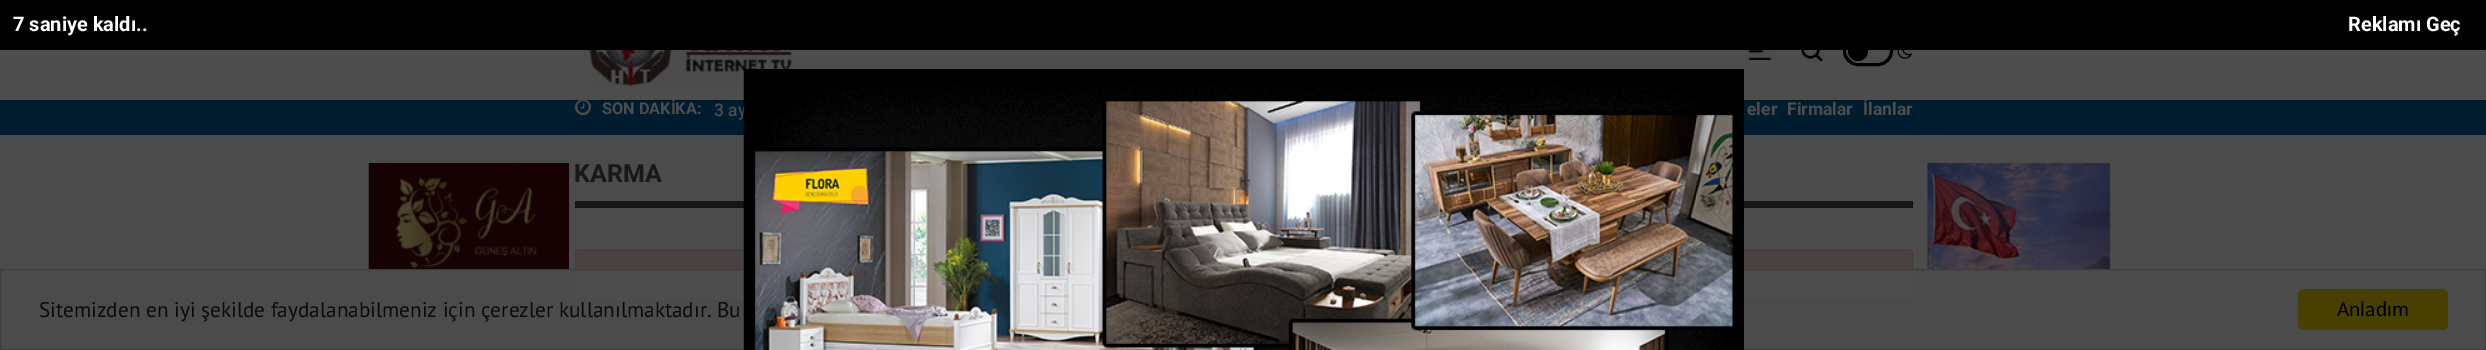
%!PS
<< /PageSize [2486 350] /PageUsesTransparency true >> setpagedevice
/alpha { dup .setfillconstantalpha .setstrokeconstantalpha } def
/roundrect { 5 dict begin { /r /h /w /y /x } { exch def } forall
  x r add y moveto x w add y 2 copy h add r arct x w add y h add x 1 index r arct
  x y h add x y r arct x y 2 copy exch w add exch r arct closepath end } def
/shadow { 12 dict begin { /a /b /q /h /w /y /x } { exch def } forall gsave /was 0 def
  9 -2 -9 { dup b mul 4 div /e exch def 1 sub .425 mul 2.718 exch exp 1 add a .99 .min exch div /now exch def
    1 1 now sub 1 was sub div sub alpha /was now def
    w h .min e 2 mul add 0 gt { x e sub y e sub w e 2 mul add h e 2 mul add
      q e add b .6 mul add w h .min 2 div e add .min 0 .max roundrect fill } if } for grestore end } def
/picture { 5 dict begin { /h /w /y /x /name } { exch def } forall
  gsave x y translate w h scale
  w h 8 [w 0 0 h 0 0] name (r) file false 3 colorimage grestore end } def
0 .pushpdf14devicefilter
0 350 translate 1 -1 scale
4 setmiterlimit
0.294 setgray
0 0 2486 350 rectfill
0 0.114 0.184 setrgbcolor
0 100 2486 35 rectfill
(img6.rgb) 575 100 17 16 picture
0 setgray
0 1 2486 100 0 2.5 0.3 shadow
0.302 setgray
0 50 2486 50 rectfill
(img1.rgb) 589 50 203 36 picture
(img2.rgb) 1748 50 24 10 picture
(img3.rgb) 1801 50 22 12 picture
0 setgray
3 setlinewidth
1844.5 37.5 47 27 13.5 roundrect stroke
newpath 1858 51 10 0 360 arc closepath fill
(img4.rgb) 1897 50 15 9 picture
0 0 2486 50 rectfill
/Roboto-Bold [20 0 0 -20 0 0] selectfont
1 setgray
13 31 moveto (7 saniye kaldı..) show
2348 31 moveto (Reklamı Geç) show
/Roboto-Medium [17.5 0 0 -17.5 0 0] selectfont
0.302 setgray
714 116 moveto (3 ay) show
0.082 setgray
575 201 1338 7 rectfill
0.29 0.255 0.255 setrgbcolor
575.5 249.5 1337 51 4.5 roundrect gsave fill grestore
0.29 0.231 0.239 setrgbcolor
1 setlinewidth
stroke
0.302 setgray
575 270 1338 31 rectfill
0.239 setgray
0.5 269.5 2485 80 rectstroke
(img5.rgb) 743 69 1001 281 picture
/Roboto-Bold [16.25 0 0 -16.25 0 0] selectfont
0.302 setgray
602 114 moveto (SON DAKİKA:) show
/Roboto-Bold [17.5 0 0 -17.5 0 0] selectfont
1747 115 moveto (eler) show
1787 115 moveto (Firmalar) show
1863 115 moveto (İlanlar) show
(img7.rgb) 368 163 201 106 picture
/Roboto-Bold [25 0 0 -25 0 0] selectfont
0.094 setgray
574 182 moveto (KARMA) show
(img8.rgb) 1918 163 201 106 picture
/PTSans-Regular [21.25 0 0 -21.25 0 0] selectfont
0.043 setgray
39 317 moveto (Sitemizden en iyi şekilde faydalanabilmeniz için çerezler kullanılmaktadır. Bu) show
0.282 0.251 0 setrgbcolor
2298 289 150 41 6 roundrect fill
/Carlito-Regular [21.25 0 0 -21.25 0 0] selectfont
0 setgray
2337 316 moveto (Anladım) show
.poppdf14devicefilter showpage
